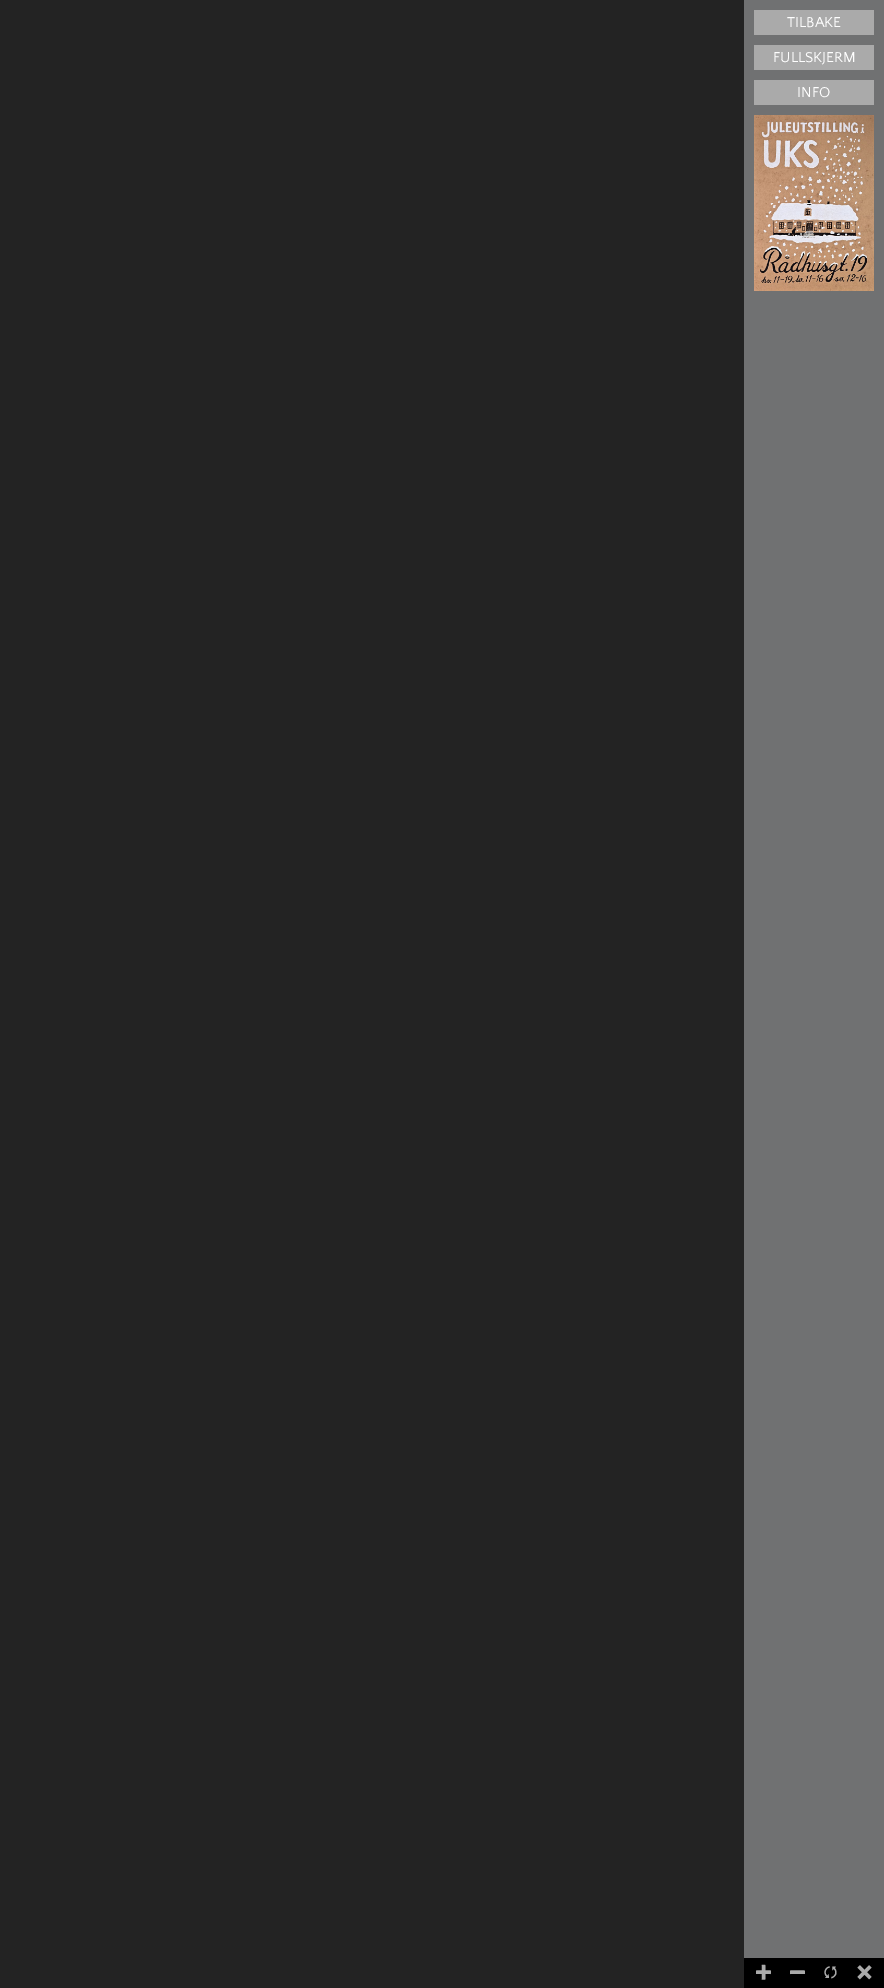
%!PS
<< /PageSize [884 1988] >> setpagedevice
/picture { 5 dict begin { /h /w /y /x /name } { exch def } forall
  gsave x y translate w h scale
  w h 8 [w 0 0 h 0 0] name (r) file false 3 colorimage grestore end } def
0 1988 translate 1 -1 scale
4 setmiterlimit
0.137 setgray
0 0 884 1988 rectfill
0.439 0.443 0.447 setrgbcolor
744 0 140 1958 rectfill
0.667 setgray
754 10 120 25 rectfill
/QuattrocentoSans-Regular [15 0 0 -15 0 0] selectfont
1 setgray
787 27 moveto (TILBAKE) show
0.667 setgray
754 45 120 25 rectfill
1 setgray
773 62 moveto (FULLSKJERM) show
0.667 setgray
754 80 120 25 rectfill
1 setgray
797 97 moveto (INFO) show
(img1.rgb) 754 115 120 176 picture
0 setgray
744 1958 140 30 rectfill
/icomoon-Regular [15 0 0 -15 0 0] selectfont
0.667 setgray
756 1979 moveto (✚) show
790 1979 moveto (⎼) show
823 1979 moveto (⥀) show
857 1979 moveto (✕) show
showpage
